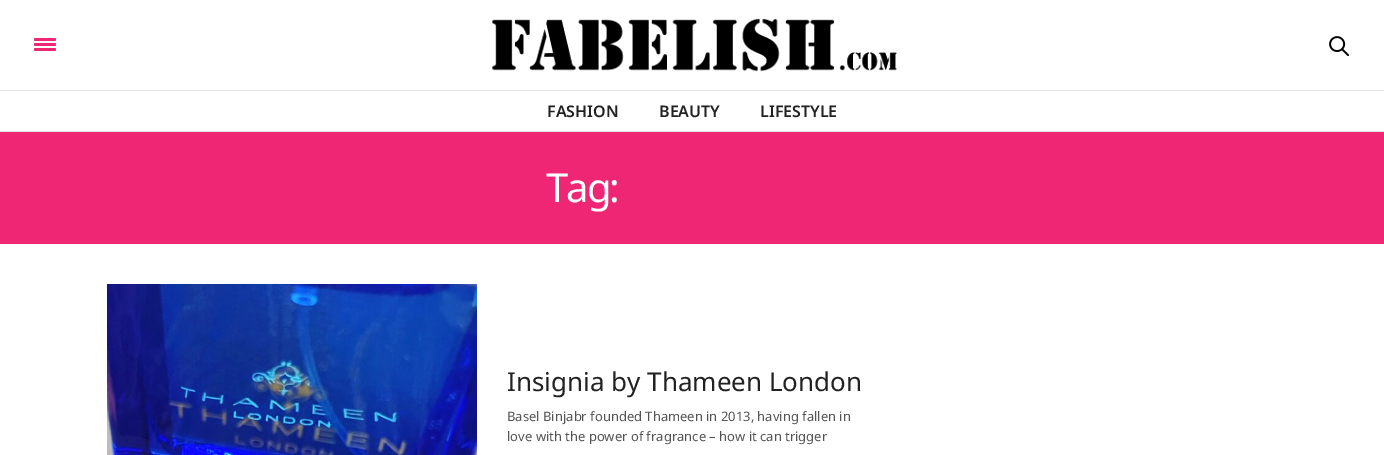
%!PS
<< /PageSize [1384 455] >> setpagedevice
/roundrect { 5 dict begin { /r /h /w /y /x } { exch def } forall
  x r add y moveto x w add y 2 copy h add r arct x w add y h add x 1 index r arct
  x y h add x y r arct x y 2 copy exch w add exch r arct closepath end } def
/picture { 5 dict begin { /h /w /y /x /name } { exch def } forall
  gsave x y translate w h scale
  w h 8 [w 0 0 h 0 0] name (r) file false 3 colorimage grestore end } def
0 455 translate 1 -1 scale
4 setmiterlimit
1 setgray
0 0 1384 455 rectfill
0.902 setgray
0 90 1384 1 rectfill
0.937 0.149 0.451 setrgbcolor
34 38 22 3 1.5 roundrect fill
34 43 22 3 1.5 roundrect fill
34 48 22 3 1.5 roundrect fill
(img1.rgb) 492 18 405 54 picture
(img2.rgb) 1329 36 20 20 picture
0.898 setgray
0 131 1384 1 rectfill
/NotoSans-SemiBold [16 0 0 -16 0 0] selectfont
0.133 setgray
547 117 moveto (FASHION) show
659 117 moveto (BEAUTY) show
760 117 moveto (LIFESTYLE) show
0.937 0.149 0.451 setrgbcolor
0 132 1384 112 rectfill
/NotoSans-Regular [40 0 0 -40 0 0] selectfont
1 setgray
546 202 moveto -2 0 (Tag:) ashow
(img3.rgb) 107 284 370 171 picture
/NotoSans-Regular [26 0 0 -26 0 0] selectfont
0.133 setgray
507 391 moveto (Insignia by Thameen London) show
/NotoSans-Regular [13 0 0 -13 0 0] selectfont
0.329 0.325 0.325 setrgbcolor
507 421 moveto (Basel Binjabr founded Thameen in 2013, having fallen in) show
507 441 moveto (love with the power of fragrance – how it can trigger) show
showpage
